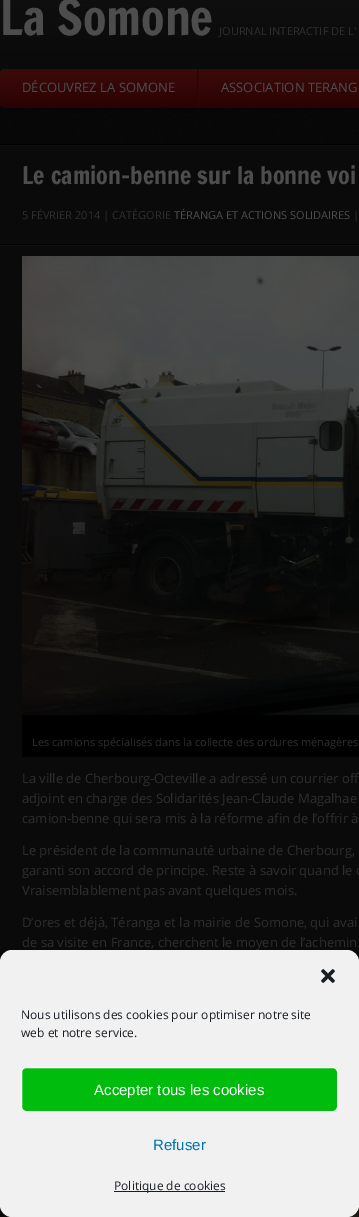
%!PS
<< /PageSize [359 1217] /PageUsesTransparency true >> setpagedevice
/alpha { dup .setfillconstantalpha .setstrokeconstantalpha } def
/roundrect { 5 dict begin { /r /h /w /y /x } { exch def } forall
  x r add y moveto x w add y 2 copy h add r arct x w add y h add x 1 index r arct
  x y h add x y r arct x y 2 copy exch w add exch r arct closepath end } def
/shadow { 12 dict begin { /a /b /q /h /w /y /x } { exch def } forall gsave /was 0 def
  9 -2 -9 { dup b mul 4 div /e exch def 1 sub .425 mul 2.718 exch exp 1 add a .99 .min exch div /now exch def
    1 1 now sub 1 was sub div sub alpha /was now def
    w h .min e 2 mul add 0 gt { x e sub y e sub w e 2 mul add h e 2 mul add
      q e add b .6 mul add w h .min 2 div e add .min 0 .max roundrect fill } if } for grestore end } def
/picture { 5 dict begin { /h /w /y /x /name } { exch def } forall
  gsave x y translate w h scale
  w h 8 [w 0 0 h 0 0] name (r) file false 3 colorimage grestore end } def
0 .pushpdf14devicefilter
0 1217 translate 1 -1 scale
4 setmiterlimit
1 setgray
0 0 359 1217 rectfill
(img1.rgb) 0 102 359 42 picture
(img2.rgb) 0 0 359 75 picture
/FrancoisOne-Regular [48 0 0 -48 0 0] selectfont
0.302 setgray
0 35 moveto (La Somone) show
/OpenSans-Regular [11 0 0 -11 0 0] selectfont
0.18 setgray
219 35 moveto (JOURNAL INTERACTIF DE L') show
0 setgray
0 71 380 39 6 5 0.35 shadow
gsave 0 69 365 39 6 roundrect clip newpath
<< /ShadingType 2 /ColorSpace /DeviceRGB /Coords [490 69 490 108] /Extend [true true] /Function << /FunctionType 2 /Domain [0 1] /C0 [0.231 0.043 0.039] /C1 [0.169 0.008 0.016] /N 1 >> >> shfill grestore
0.145 0.016 0.02 setrgbcolor
197 69 1 39 rectfill
/OpenSans-Regular [13 0 0 -13 0 0] selectfont
0.302 setgray
22 92 moveto (DÉCOUVREZ LA SOMONE) show
0.208 0.027 0.031 setrgbcolor
newpath 198 108 moveto 198 69 lineto 199 69 lineto 199 107 lineto closepath fill
0.302 setgray
221 92 moveto (ASSOCIATION TERANG) show
0.039 setgray
0 146 359 1071 rectfill
(img3.rgb) 0 144 359 2 picture
/FrancoisOne-Regular [24 0 0 -24 0 0] selectfont
0.302 setgray
22 184 moveto (Le camion-benne sur la bonne voi) show
/OpenSans-Regular [11 0 0 -11 0 0] selectfont
0.18 setgray
22 219 moveto (5 FÉVRIER 2014 | CATÉGORIE) show
0.302 setgray
174 219 moveto (TÉRANGA ET ACTIONS SOLIDAIRES) show
0.18 setgray
353 219 moveto (|) show
(img3.rgb) 0 244 359 2 picture
0 setgray
22 715 337 42 rectfill
(img4.rgb) 22 256 337 459 picture
0.18 setgray
32 746 moveto (Les camions spécialisés dans la collecte des ordures ménagères) show
/OpenSans-Regular [13 0 0 -13 0 0] selectfont
22 783 moveto (La ville de Cherbourg-Octeville a adressé un courrier off) show
22 803 moveto (adjoint en charge des Solidarités Jean-Claude Magalhae) show
22 823 moveto (camion-benne qui sera mis à la réforme afin de l’offrir à) show
22 855 moveto (Le président de la communauté urbaine de Cherbourg,) show
22 875 moveto (garanti son accord de principe. Reste à savoir quand le c) show
22 895 moveto (Vraisemblablement pas avant quelques mois.) show
22 927 moveto (D’ores et déjà, Téranga et la mairie de Somone, qui avai) show
22 947 moveto (de sa visite en France, cherchent le moyen de l’achemin) show
(img5.rgb) 347 1205 12 12 picture
0.945 setgray
0.5 950.5 358 266 11.5 roundrect gsave fill grestore
stroke
(img6.rgb) 321 969 14 14 picture
/OpenSans-Regular [12 0 0 -12 0 0] selectfont
0.098 0.118 0.137 setrgbcolor
21 1019 moveto (Nous utilisons des cookies pour optimiser notre site) show
21 1037 moveto (web et notre service.) show
0 0.737 0.047 setrgbcolor
21.5 1067.5 316 44 4.5 roundrect gsave fill grestore
1 setgray
stroke
/LiberationSans-Regular [15 0 0 -15 0 0] selectfont
94 1095 moveto (Accepter tous les cookies) show
0 0.451 0.667 setrgbcolor
153 1150 moveto (Refuser) show
0.098 0.118 0.137 setrgbcolor
114 1191 111 1 rectfill
/OpenSans-Regular [12 0 0 -12 0 0] selectfont
114 1190 moveto (Politique de cookies) show
.poppdf14devicefilter showpage
